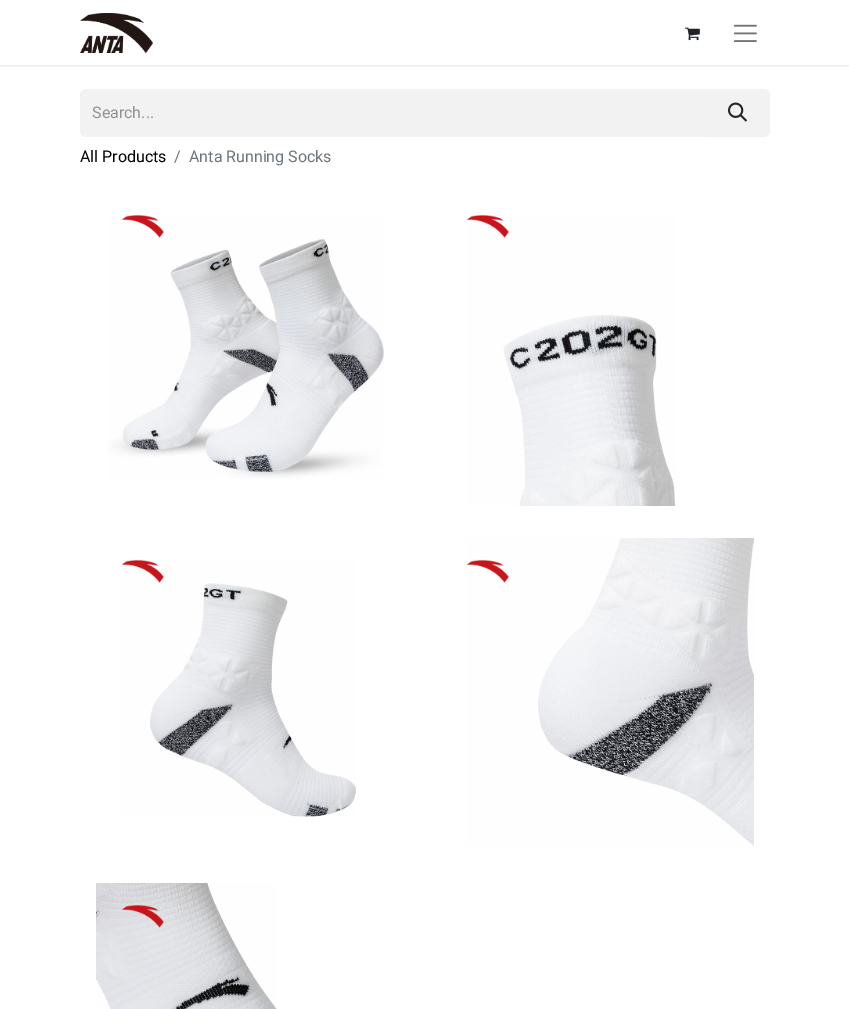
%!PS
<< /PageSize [849 1009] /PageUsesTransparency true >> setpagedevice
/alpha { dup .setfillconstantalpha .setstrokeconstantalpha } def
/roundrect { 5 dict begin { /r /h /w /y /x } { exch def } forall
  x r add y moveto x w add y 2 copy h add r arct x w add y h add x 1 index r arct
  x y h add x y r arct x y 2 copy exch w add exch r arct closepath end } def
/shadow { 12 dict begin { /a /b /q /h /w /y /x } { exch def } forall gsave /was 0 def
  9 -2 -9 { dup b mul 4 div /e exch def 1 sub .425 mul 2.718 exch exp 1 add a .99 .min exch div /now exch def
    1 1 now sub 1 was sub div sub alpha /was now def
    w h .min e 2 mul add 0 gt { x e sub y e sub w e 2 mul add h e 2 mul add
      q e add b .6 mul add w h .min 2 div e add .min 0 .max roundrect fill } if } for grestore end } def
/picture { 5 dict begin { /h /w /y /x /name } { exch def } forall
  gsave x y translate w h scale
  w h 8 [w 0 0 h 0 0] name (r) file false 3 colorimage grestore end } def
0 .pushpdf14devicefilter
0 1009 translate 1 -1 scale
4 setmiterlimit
1 setgray
0 0 849 1009 rectfill
gsave
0 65 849 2 rectclip
0 setgray
0 1 849 65 0 1.5 0.1 shadow
grestore
(img1.rgb) 80 13 73 40 picture
(img2.rgb) 685 27 15 14 picture
(img3.rgb) 733 24 24 18 picture
0.949 0.949 0.953 setrgbcolor
newpath 86 89 moveto 707 89 lineto 707 137 lineto 86 137 lineto 82.5 137 80 134.5 80 131 curveto 80 95 lineto 80 91.5 82.5 89 86 89 curveto closepath fill
/Roboto-Regular [16 0 0 -16 0 0] selectfont
0.565 0.573 0.58 setrgbcolor
92 118 moveto (Search...) show
0.949 0.949 0.953 setrgbcolor
newpath 707 90 moveto 764 90 lineto 767 90 769 92 769 95 curveto 769 131 lineto 769 134 767 136 764 136 curveto 707 136 lineto closepath gsave fill grestore
2 setlinewidth
stroke
(img4.rgb) 728 102 20 20 picture
0 setgray
80 162 moveto (All Products) show
0.424 0.459 0.49 setrgbcolor
174 162 moveto (/) show
189 162 moveto (Anta Running Socks) show
(img5.rgb) 108 215 276 264 picture
(img6.rgb) 466 215 210 291 picture
(img7.rgb) 121 560 235 257 picture
(img8.rgb) 466 538 288 308 picture
(img9.rgb) 96 883 181 126 picture
.poppdf14devicefilter showpage
